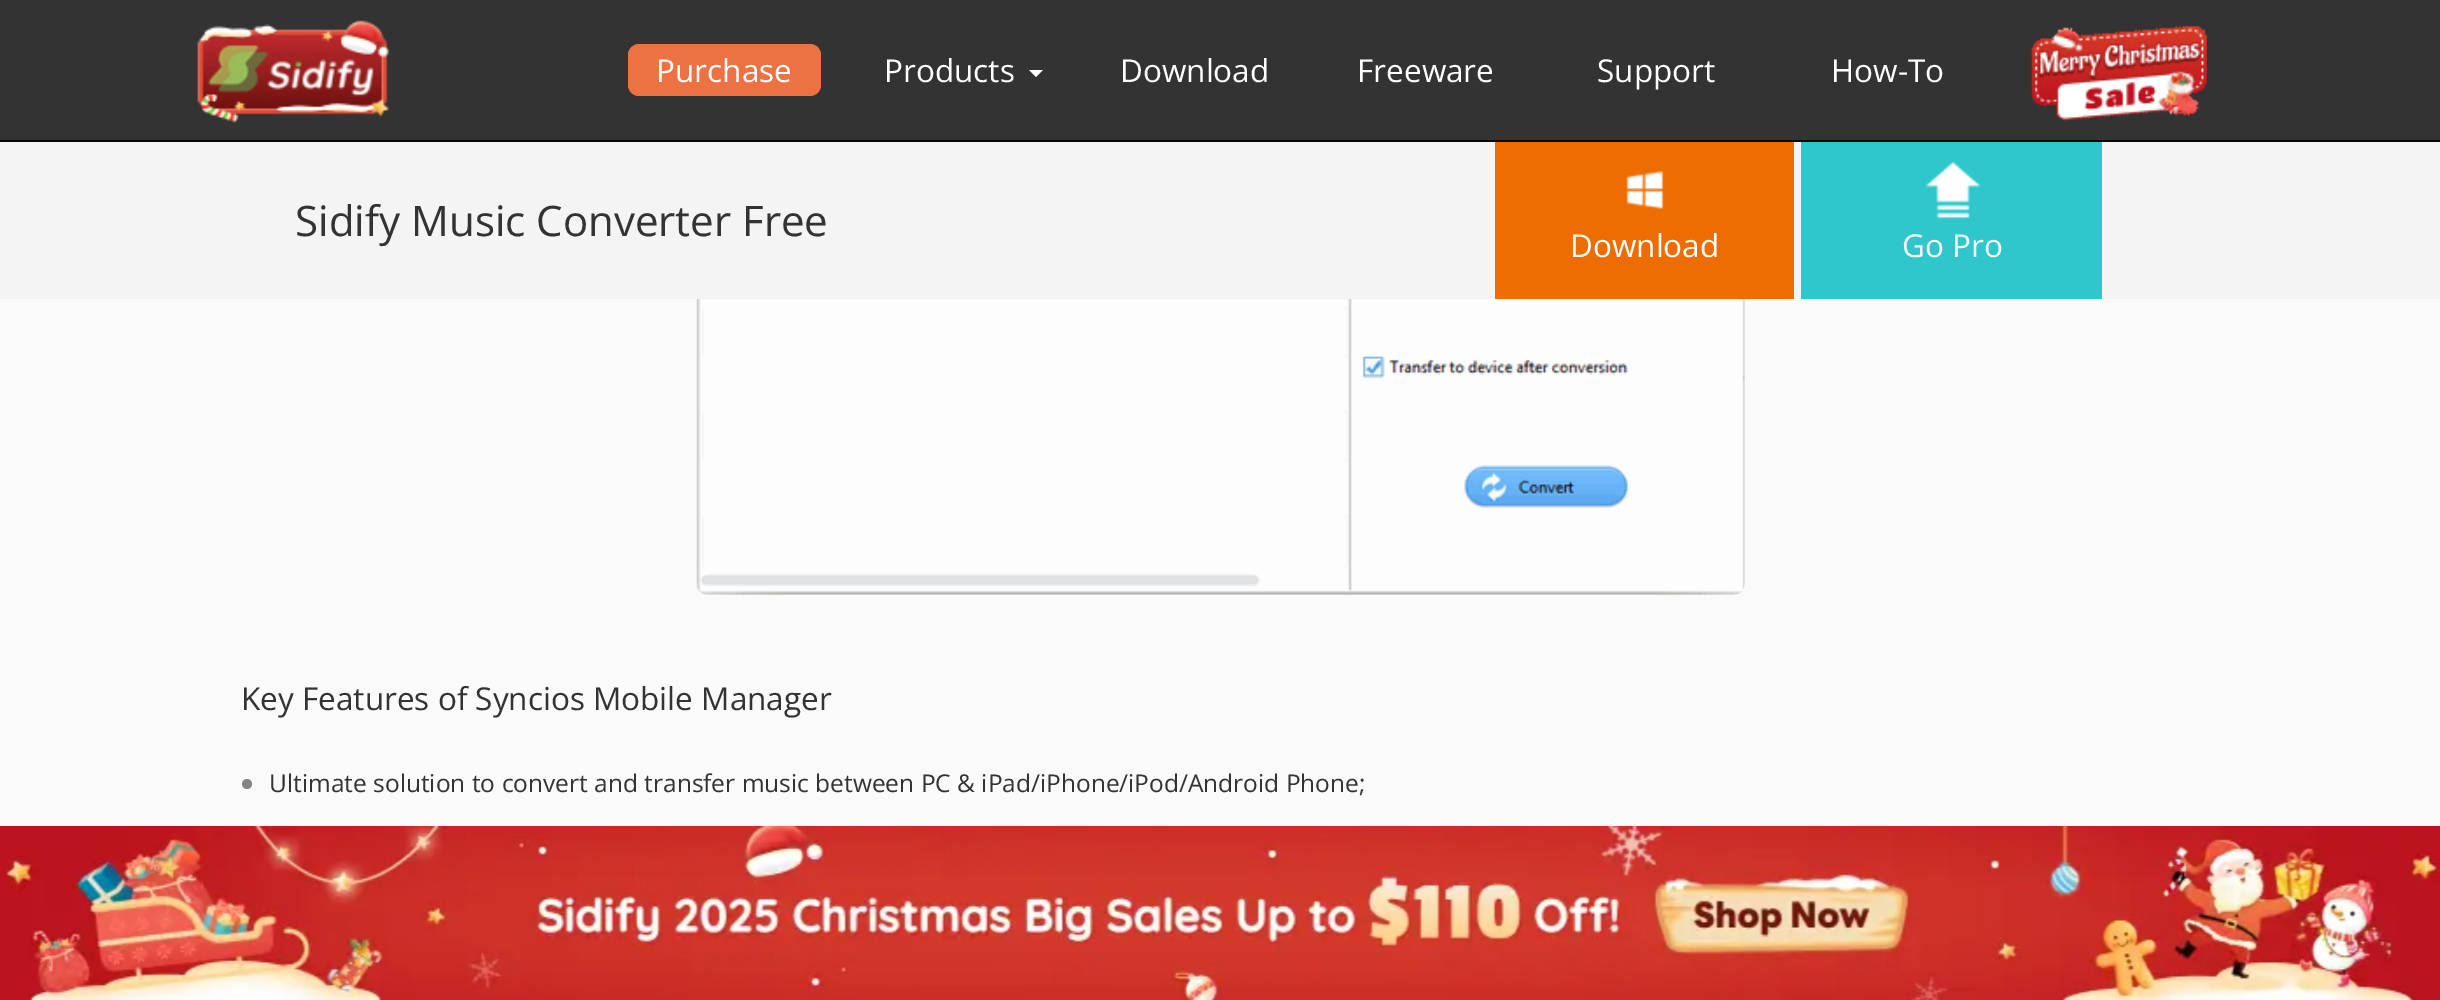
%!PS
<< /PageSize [2440 1000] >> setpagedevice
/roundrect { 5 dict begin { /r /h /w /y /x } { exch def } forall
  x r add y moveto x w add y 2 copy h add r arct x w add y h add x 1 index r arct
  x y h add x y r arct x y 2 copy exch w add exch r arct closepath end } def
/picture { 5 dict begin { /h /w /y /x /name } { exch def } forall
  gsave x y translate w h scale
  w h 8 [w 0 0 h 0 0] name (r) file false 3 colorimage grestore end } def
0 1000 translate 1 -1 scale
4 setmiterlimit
0.98 setgray
0 0 2440 1000 rectfill
0.2 setgray
0 0 2440 140 rectfill
0.031 setgray
0 140 2440 2 rectfill
(img1.rgb) 197 20 192 103 picture
0.929 0.447 0.263 setrgbcolor
628 44 193 52 11 roundrect fill
/OpenSans-Regular [31.5 0 0 -31.5 0 0] selectfont
1 setgray
656 82 moveto (Purchase) show
884 82 moveto (Products) show
newpath 1029 70 moveto 1043 70 lineto 1036 77 lineto closepath fill
1120 82 moveto (Download) show
1357 82 moveto (Freeware) show
1597 82 moveto (Support) show
1831 82 moveto (How-To) show
(img2.rgb) 2031 25 176 97 picture
0.957 setgray
0 142 2440 157 rectfill
/OpenSans-Regular [42 0 0 -42 0 0] selectfont
0.2 setgray
295 236 moveto (Sidify Music Converter Free) show
0.933 0.427 0.008 setrgbcolor
1495 142 299 157 rectfill
(img3.rgb) 1626 171 38 39 picture
/OpenSans-Regular [31.5 0 0 -31.5 0 0] selectfont
1 setgray
1570 257 moveto (Download) show
0.188 0.78 0.8 setrgbcolor
1801 142 301 157 rectfill
(img4.rgb) 1925 161 56 58 picture
1 setgray
1902 257 moveto (Go Pro) show
(img5.rgb) 696 299 1049 296 picture
0.2 setgray
241 710 moveto (Key Features of Syncios Mobile Manager) show
0.522 setgray
newpath 247 784 5 0 360 arc closepath fill
/OpenSans-Regular [24.5 0 0 -24.5 0 0] selectfont
0.2 setgray
269 792 moveto (Ultimate solution to convert and transfer music between PC & iPad/iPhone/iPod/Android Phone;) show
(img6.rgb) 0 826 2440 174 picture
showpage
